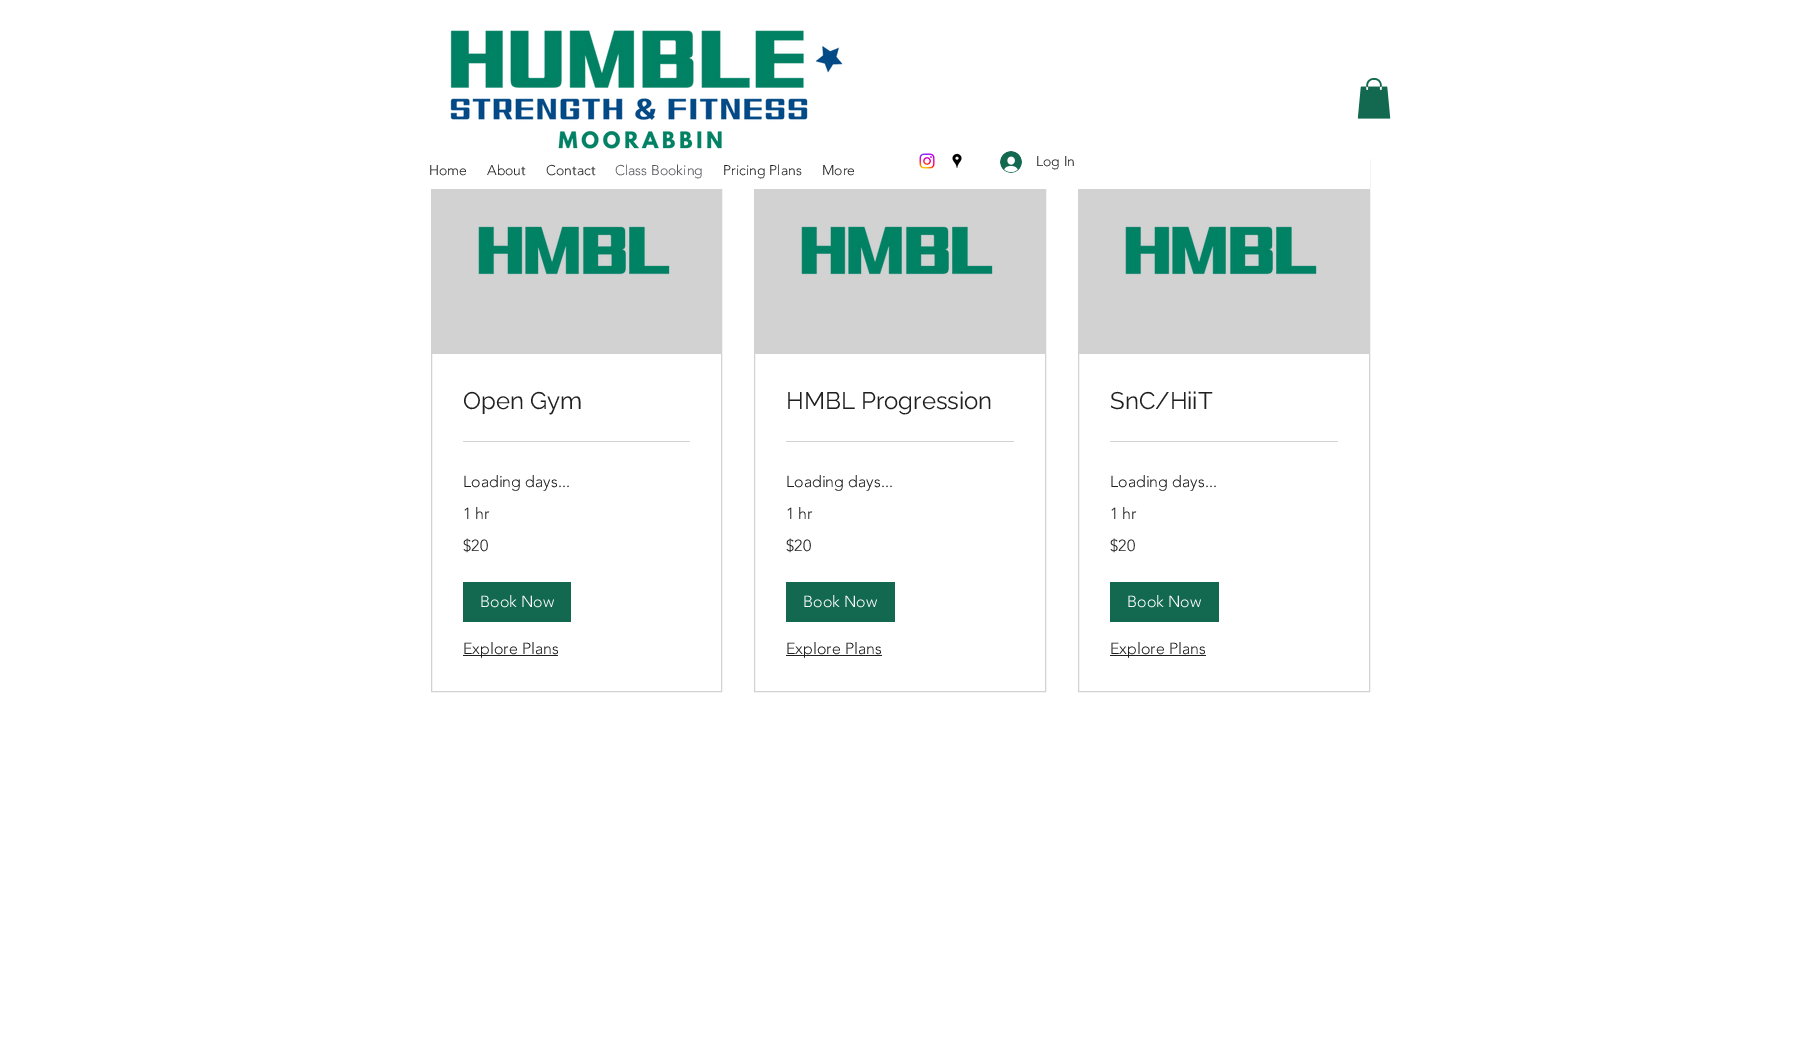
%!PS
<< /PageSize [1801 1053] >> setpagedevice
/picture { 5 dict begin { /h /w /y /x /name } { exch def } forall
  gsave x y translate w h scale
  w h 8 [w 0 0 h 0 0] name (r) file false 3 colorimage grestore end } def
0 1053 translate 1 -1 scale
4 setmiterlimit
1 setgray
0 0 1801 1053 rectfill
(img1.rgb) 450 30 393 119 picture
(img2.rgb) 1357 78 34 41 picture
0.824 0.824 0.827 setrgbcolor
431.5 159.5 290 532 rectstroke
754.5 159.5 291 532 rectstroke
1078.5 159.5 291 532 rectstroke
1 setgray
431 159 939 30 rectfill
/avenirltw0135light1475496-Light [14 0 0 -14 0 0] selectfont
0.125 0.122 0.129 setrgbcolor
429 175 moveto (Home) show
487 175 moveto (About) show
546 175 moveto (Contact) show
0.345 0.333 0.353 setrgbcolor
615 175 moveto (Class Booking) show
0.125 0.122 0.129 setrgbcolor
723 175 moveto (Pricing Plans) show
822 175 moveto (More) show
(img3.rgb) 919 153 16 16 picture
(img4.rgb) 952 153 10 15 picture
(img5.rgb) 1000 151 22 22 picture
1036 166 moveto (Log In) show
0.824 0.824 0.827 setrgbcolor
432 189 289 165 rectfill
(img6.rgb) 478 226 192 49 picture
/Raleway-Regular [24 0 0 -24 0 0] selectfont
0.125 0.122 0.129 setrgbcolor
463 409 moveto (Open Gym) show
0.824 0.824 0.827 setrgbcolor
463 441 227 1 rectfill
/avenirltw0135light1475496-Light [16 0 0 -16 0 0] selectfont
0.125 0.122 0.129 setrgbcolor
463 487 moveto (Loading days...) show
463 519 moveto (1 hr) show
463 551 moveto ($20) show
0.075 0.408 0.314 setrgbcolor
463 582 108 40 rectfill
1 setgray
480 607 moveto (Book Now) show
0.125 0.122 0.129 setrgbcolor
463 655 95 1 rectfill
463 654 moveto (Explore Plans) show
0.824 0.824 0.827 setrgbcolor
755 189 290 165 rectfill
(img6.rgb) 801 226 192 49 picture
/Raleway-Regular [24 0 0 -24 0 0] selectfont
0.125 0.122 0.129 setrgbcolor
786 409 moveto (HMBL Progression) show
0.824 0.824 0.827 setrgbcolor
786 441 228 1 rectfill
/avenirltw0135light1475496-Light [16 0 0 -16 0 0] selectfont
0.125 0.122 0.129 setrgbcolor
786 487 moveto (Loading days...) show
786 519 moveto (1 hr) show
786 551 moveto ($20) show
0.075 0.408 0.314 setrgbcolor
786 582 109 40 rectfill
1 setgray
803 607 moveto (Book Now) show
0.125 0.122 0.129 setrgbcolor
786 655 96 1 rectfill
786 654 moveto (Explore Plans) show
0.824 0.824 0.827 setrgbcolor
1079 189 290 165 rectfill
(img6.rgb) 1125 226 192 49 picture
/Raleway-Regular [24 0 0 -24 0 0] selectfont
0.125 0.122 0.129 setrgbcolor
1110 409 moveto (SnC/HiiT) show
0.824 0.824 0.827 setrgbcolor
1110 441 228 1 rectfill
/avenirltw0135light1475496-Light [16 0 0 -16 0 0] selectfont
0.125 0.122 0.129 setrgbcolor
1110 487 moveto (Loading days...) show
1110 519 moveto (1 hr) show
1110 551 moveto ($20) show
0.075 0.408 0.314 setrgbcolor
1110 582 109 40 rectfill
1 setgray
1127 607 moveto (Book Now) show
0.125 0.122 0.129 setrgbcolor
1110 655 96 1 rectfill
1110 654 moveto (Explore Plans) show
showpage
